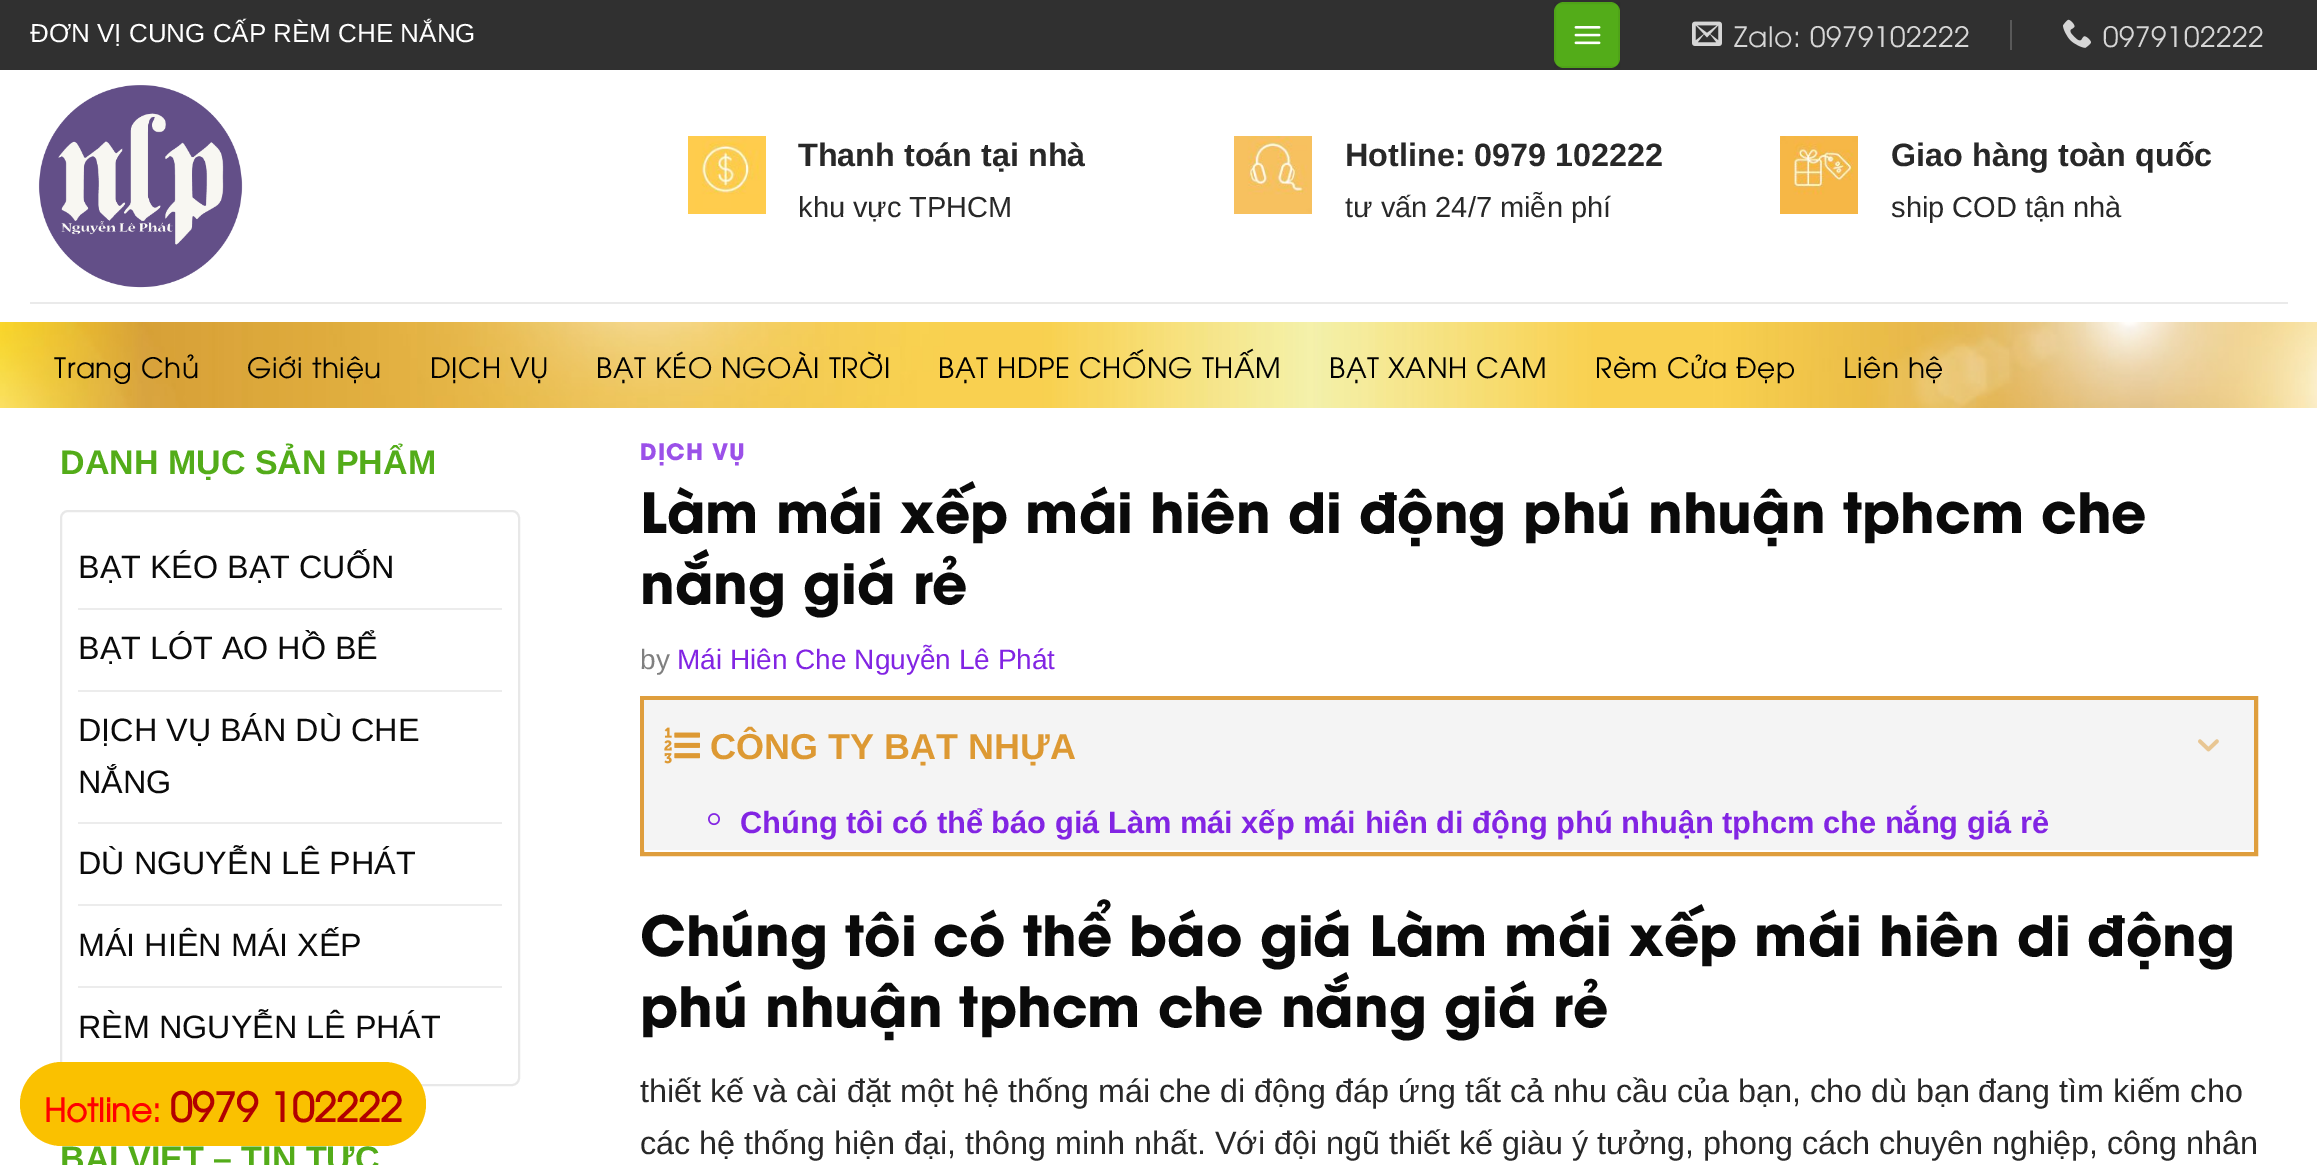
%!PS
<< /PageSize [2317 1165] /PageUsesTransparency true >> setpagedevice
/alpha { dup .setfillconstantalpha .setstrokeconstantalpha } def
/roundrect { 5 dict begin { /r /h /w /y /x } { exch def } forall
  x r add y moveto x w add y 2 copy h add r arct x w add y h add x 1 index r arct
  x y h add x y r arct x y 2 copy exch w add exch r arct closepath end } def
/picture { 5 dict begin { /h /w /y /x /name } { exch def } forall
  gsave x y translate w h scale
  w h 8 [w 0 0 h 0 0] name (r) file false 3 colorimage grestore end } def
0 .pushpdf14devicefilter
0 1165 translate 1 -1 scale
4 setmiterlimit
1 setgray
0 0 2317 1165 rectfill
0.188 setgray
0 0 2317 70 rectfill
/LiberationSans-Regular [26 0 0 -26 0 0] selectfont
1 setgray
30 42 moveto (ĐƠN VỊ CUNG CẤP RÈM CHE NẮNG) show
0.325 0.675 0.098 setrgbcolor
1554 2 66 66 10 roundrect fill
0.05 alpha
0 setgray
2 setlinewidth
1555 3 64 64 rectstroke
1 alpha
(img1.rgb) 1574 26 27 19 picture
(img2.rgb) 1692 21 30 25 picture
/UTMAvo-Regular [28 0 0 -28 0 0] selectfont
0.839 setgray
1734 47 moveto 0.6 0 (Zalo: 0979102222) ashow
0.349 setgray
2010 20 2 30 rectfill
(img3.rgb) 2063 19 28 29 picture
0.839 setgray
2103 47 moveto 0.6 0 (0979102222) ashow
(img4.rgb) 38 85 205 203 picture
(img5.rgb) 688 136 78 78 picture
/LiberationSans-Bold [32.32 0 0 -32.32 0 0] selectfont
0.157 setgray
798 166 moveto (Thanh toán tại nhà) show
/LiberationSans-Regular [29 0 0 -29 0 0] selectfont
798 217 moveto (khu vực TPHCM) show
(img6.rgb) 1234 136 78 78 picture
/LiberationSans-Bold [32.32 0 0 -32.32 0 0] selectfont
1345 166 moveto (Hotline: 0979 102222) show
/LiberationSans-Regular [29 0 0 -29 0 0] selectfont
1345 217 moveto (tư vấn 24/7 miễn phí) show
(img7.rgb) 1780 136 78 78 picture
/LiberationSans-Bold [32.32 0 0 -32.32 0 0] selectfont
1891 166 moveto (Giao hàng toàn quốc) show
/LiberationSans-Regular [29 0 0 -29 0 0] selectfont
1891 217 moveto (ship COD tận nhà) show
0.918 setgray
30 302 2258 2 rectfill
(img8.rgb) 0 322 2317 86 picture
/UTMAvo-Regular [28 0 0 -28 0 0] selectfont
0 setgray
54 378 moveto 0.6 0 (Trang Chủ) ashow
247 378 moveto 0.6 0 (Giới thiệu) ashow
430 378 moveto 0.6 0 (DỊCH VỤ) ashow
596 378 moveto 0.6 0 (BẠT KÉO NGOÀI TRỜI) ashow
938 378 moveto 0.6 0 (BẠT HDPE CHỐNG THẤM) ashow
1329 378 moveto 0.6 0 (BẠT XANH CAM) ashow
1595 378 moveto 0.6 0 (Rèm Cửa Đẹp) ashow
1843 378 moveto 0.6 0 (Liên hệ) ashow
/LiberationSans-Bold [34 0 0 -34 0 0] selectfont
0.325 0.675 0.098 setrgbcolor
60 474 moveto (DANH MỤC SẢN PHẨM) show
0.91 setgray
61 511 458 574 7 roundrect stroke
/LiberationSans-Regular [32.32 0 0 -32.32 0 0] selectfont
0.039 setgray
78 578 moveto (BẠT KÉO BẠT CUỐN) show
0.925 setgray
78 608 424 2 rectfill
0.039 setgray
78 659 moveto (BẠT LÓT AO HỒ BỂ) show
0.925 setgray
78 690 424 2 rectfill
0.039 setgray
78 741 moveto (DỊCH VỤ BÁN DÙ CHE) show
78 793 moveto (NẮNG) show
0.925 setgray
78 822 424 2 rectfill
0.039 setgray
78 874 moveto (DÙ NGUYỄN LÊ PHÁT) show
0.925 setgray
78 904 424 2 rectfill
0.039 setgray
78 956 moveto (MÁI HIÊN MÁI XẾP) show
0.925 setgray
78 986 424 2 rectfill
0.039 setgray
78 1038 moveto (RÈM NGUYỄN LÊ PHÁT) show
/LiberationSans-Bold [34 0 0 -34 0 0] selectfont
0.325 0.675 0.098 setrgbcolor
60 1170 moveto (BÀI VIẾT – TIN TỨC) show
/UTMAvo-Bold [22.5 0 0 -22.5 0 0] selectfont
0.608 0.314 0.914 setrgbcolor
640 460 moveto 1 0 (DỊCH VỤ) ashow
/UTMAvo-Bold [54.95 0 0 -54.95 0 0] selectfont
0.039 setgray
640 533 moveto (Làm mái xếp mái hiên di động phú nhuận tphcm che) show
640 604 moveto (nắng giá rẻ) show
/LiberationSans-Regular [28 0 0 -28 0 0] selectfont
0.502 setgray
640 669 moveto (by) show
0.51 0.141 0.89 setrgbcolor
677 669 moveto (Mái Hiên Che Nguyễn Lê Phát) show
0.875 0.62 0.239 setrgbcolor
4 setlinewidth
642 698 1614 156 rectstroke
0.957 setgray
644 700 1610 150 rectfill
(img9.rgb) 664 727 36 37 picture
/LiberationSans-Bold [36 0 0 -36 0 0] selectfont
0.867 0.6 0.2 setrgbcolor
710 759 moveto (CÔNG TY BẠT NHỰA) show
(img10.rgb) 2198 739 21 13 picture
(img11.rgb) 708 813 12 13 picture
/LiberationSans-Bold [30.8 0 0 -30.8 0 0] selectfont
0.51 0.141 0.89 setrgbcolor
740 833 moveto (Chúng tôi có thể báo giá Làm mái xếp mái hiên di động phú nhuận tphcm che nắng giá rẻ) show
/UTMAvo-Bold [54.95 0 0 -54.95 0 0] selectfont
0.039 setgray
640 956 moveto (Chúng tôi có thể báo giá Làm mái xếp mái hiên di động) show
640 1027 moveto (phú nhuận tphcm che nắng giá rẻ) show
/LiberationSans-Regular [32.32 0 0 -32.32 0 0] selectfont
0.157 setgray
640 1102 moveto (thiết kế và cài đặt một hệ thống mái che di động đáp ứng tất cả nhu cầu của bạn, cho dù bạn đang tìm kiếm cho) show
640 1154 moveto (các hệ thống hiện đại, thông minh nhất. Với đội ngũ thiết kế giàu ý tưởng, phong cách chuyên nghiệp, công nhân) show
0.98 0.757 0 setrgbcolor
20 1062 406 84 42 roundrect fill
/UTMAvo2-Bold [32.32 0 0 -32.32 0 0] selectfont
1 0 0 setrgbcolor
44 1122 moveto (Hotline:) show
/UTMAvo2-Bold [40 0 0 -40 0 0] selectfont
0.698 0 0 setrgbcolor
170 1122 moveto (0979 102222) show
.poppdf14devicefilter showpage
